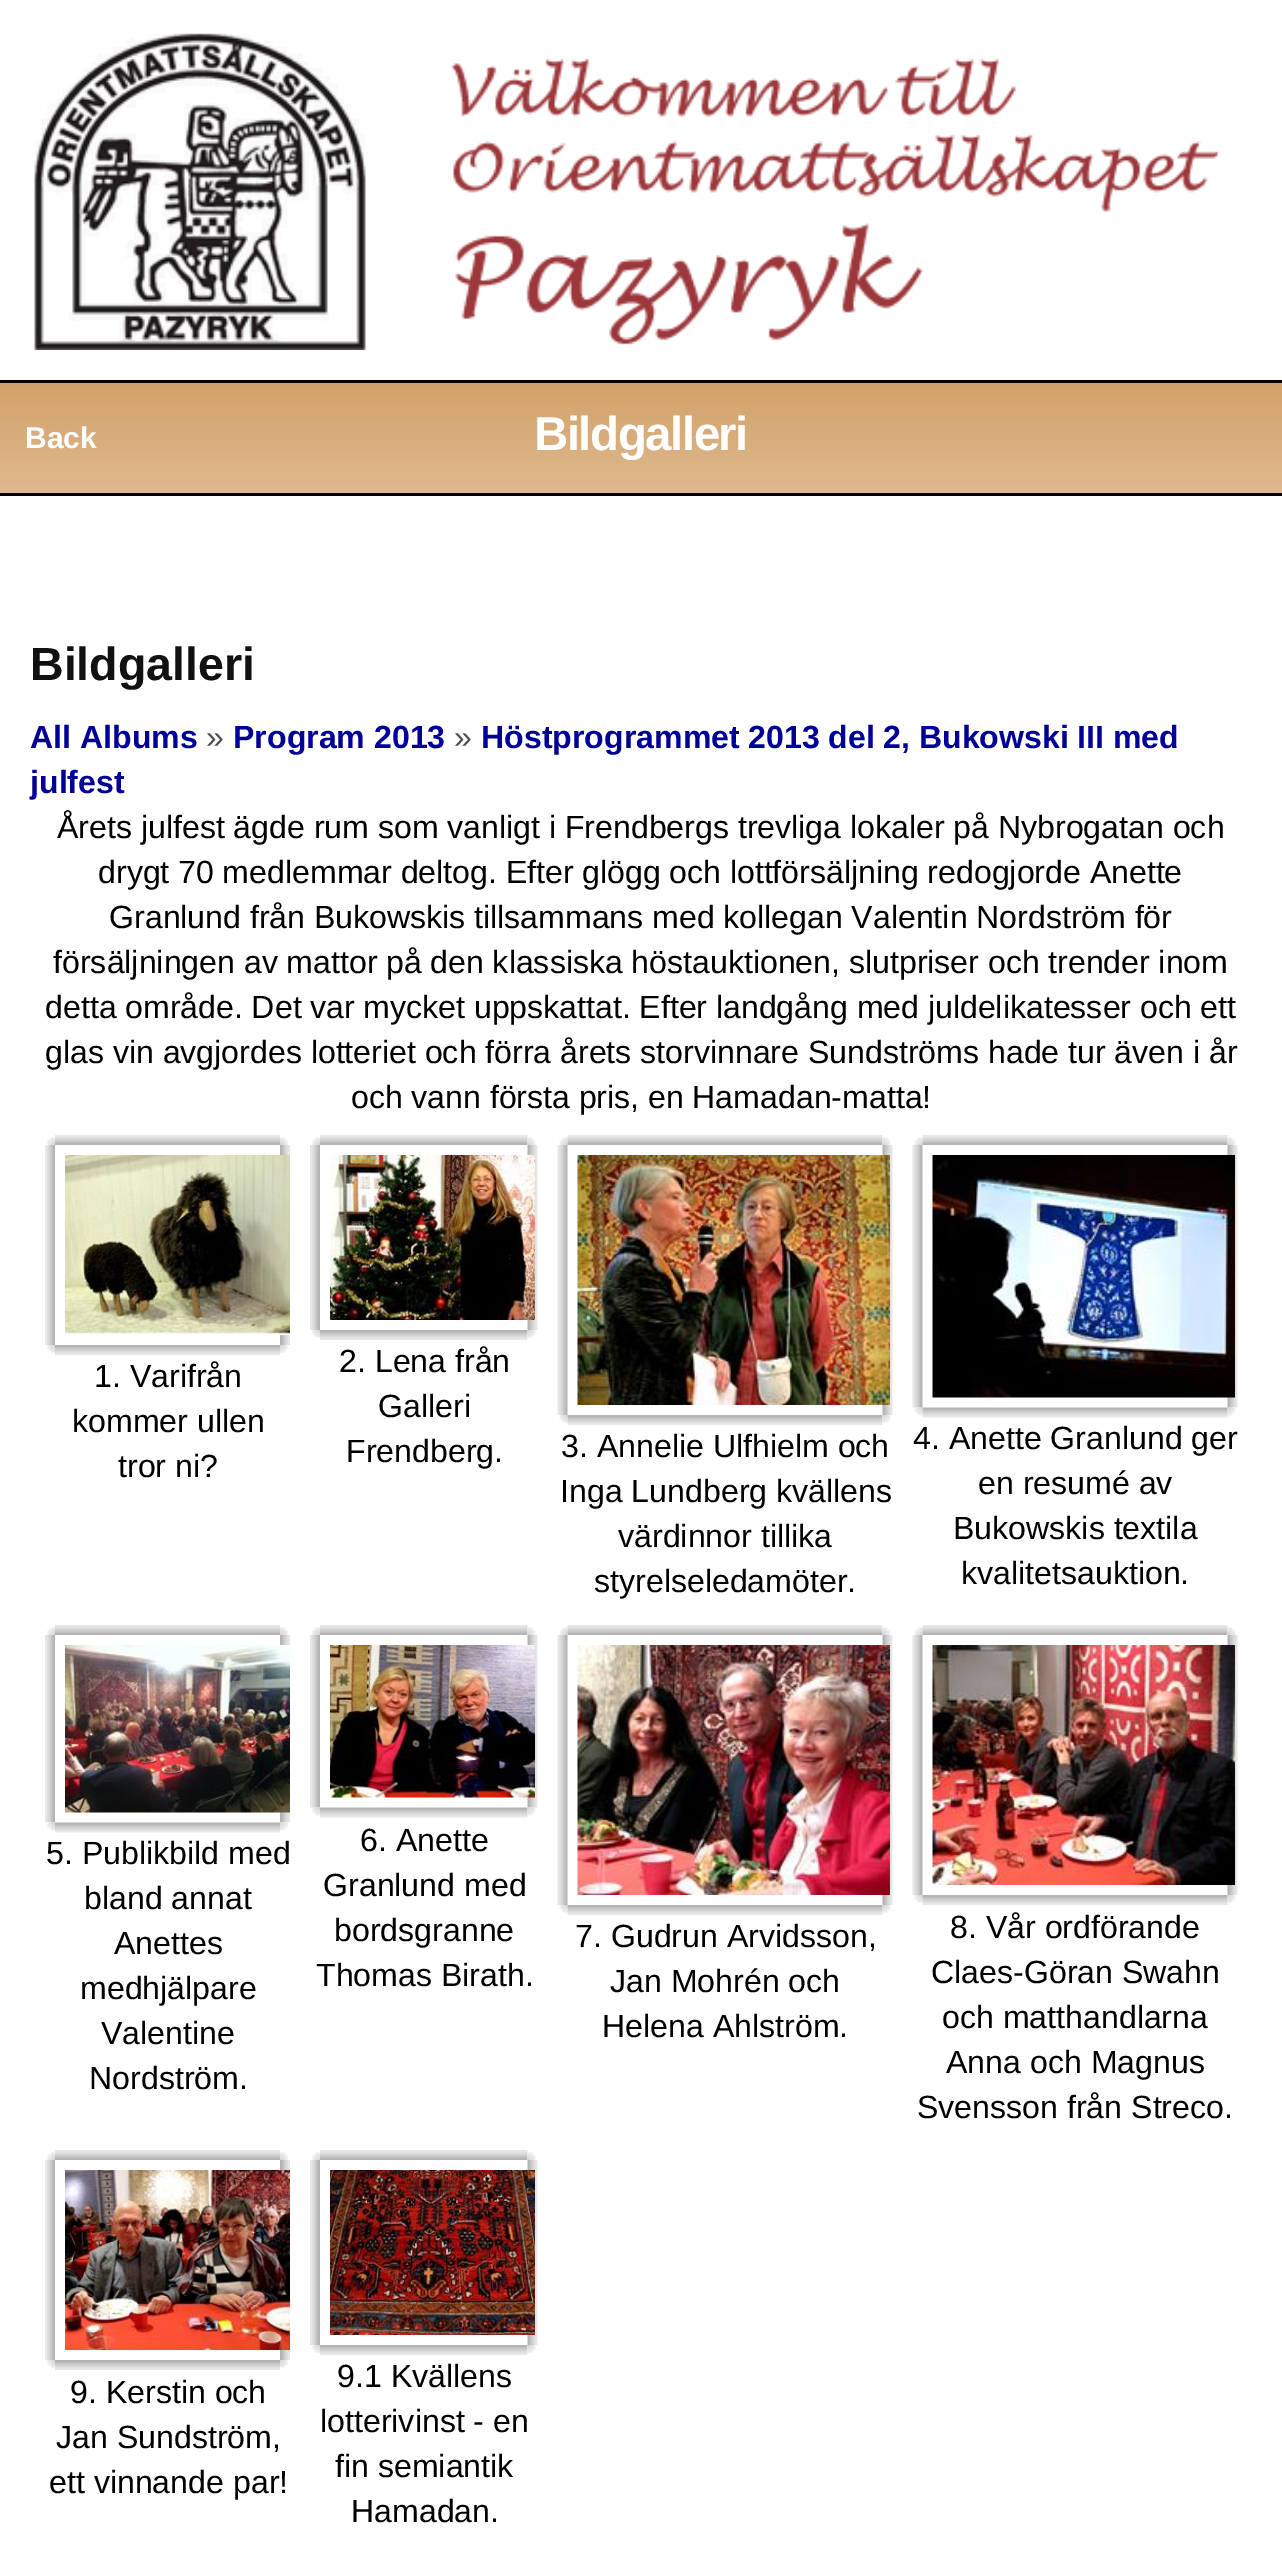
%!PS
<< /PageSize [1282 2559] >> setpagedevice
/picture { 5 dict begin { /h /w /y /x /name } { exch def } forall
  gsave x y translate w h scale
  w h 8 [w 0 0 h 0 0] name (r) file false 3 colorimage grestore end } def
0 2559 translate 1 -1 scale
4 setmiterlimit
1 setgray
0 0 1282 2559 rectfill
(img1.rgb) 34 33 1186 317 picture
gsave newpath 0 383 moveto 1282 383 lineto 1282 493 lineto 0 493 lineto closepath clip newpath
<< /ShadingType 2 /ColorSpace /DeviceRGB /Coords [641 382 641 493] /Extend [true true] /Function << /FunctionType 2 /Domain [0 1] /C0 [0.827 0.635 0.412] /C1 [0.871 0.725 0.561] /N 1 >> >> shfill grestore
0 setgray
0 380 1282 3 rectfill
0 493 1282 3 rectfill
/LiberationSans-Bold [30 0 0 -30 0 0] selectfont
1 setgray
25 448 moveto (Back) show
/LiberationSans-Bold [47.5 0 0 -47.5 0 0] selectfont
534 450 moveto -1.5 0 (Bildgalleri) ashow
/LiberationSans-Bold [46.5 0 0 -46.5 0 0] selectfont
0.067 setgray
30 680 moveto (Bildgalleri) show
/LiberationSans-Bold [32.1 0 0 -32.1 0 0] selectfont
0 0 0.6 setrgbcolor
30 748 moveto (All Albums) show
/LiberationSans-Regular [32.1 0 0 -32.1 0 0] selectfont
0.31 setgray
206 748 moveto (») show
/LiberationSans-Bold [32.1 0 0 -32.1 0 0] selectfont
0 0 0.6 setrgbcolor
233 748 moveto (Program 2013) show
/LiberationSans-Regular [32.1 0 0 -32.1 0 0] selectfont
0.31 setgray
454 748 moveto (») show
/LiberationSans-Bold [32.1 0 0 -32.1 0 0] selectfont
0 0 0.6 setrgbcolor
481 748 moveto -0.25 0 32 (Höstprogrammet 2013 del 2, Bukowski III med) widthshow
30 793 moveto (julfest) show
/LiberationSans-Regular [32.1 0 0 -32.1 0 0] selectfont
0 setgray
57 838 moveto -0.1 0 32 (Årets julfest ägde rum som vanligt i Frendbergs trevliga lokaler på Nybrogatan och) widthshow
98 883 moveto -0.25 0 32 (drygt 70 medlemmar deltog. Efter glögg och lottförsäljning redogjorde Anette) widthshow
109 928 moveto -0.25 0 32 (Granlund från Bukowskis tillsammans med kollegan Valentin Nordström för) widthshow
53 973 moveto -0.25 0 32 (försäljningen av mattor på den klassiska höstauktionen, slutpriser och trender inom) widthshow
45 1018 moveto -0.25 0 32 (detta område. Det var mycket uppskattat. Efter landgång med juldelikatesser och ett) widthshow
45 1063 moveto -0.1 0 32 (glas vin avgjordes lotteriet och förra årets storvinnare Sundströms hade tur även i år) widthshow
351 1108 moveto -0.25 0 32 (och vann första pris, en Hamadan-matta!) widthshow
(img2.rgb) 47 1137 8 8 picture
(img3.rgb) 55 1135 225 10 picture
(img4.rgb) 280 1137 8 8 picture
(img5.rgb) 45 1145 10 200 picture
(img6.rgb) 280 1145 10 200 picture
(img7.rgb) 65 1155 225 180 picture
(img8.rgb) 47 1345 8 8 picture
(img9.rgb) 55 1345 225 10 picture
(img10.rgb) 280 1345 8 8 picture
94 1387 moveto (1. Varifrån) show
72 1432 moveto (kommer ullen) show
118 1477 moveto (tror ni?) show
(img2.rgb) 312 1137 8 8 picture
(img11.rgb) 320 1135 208 10 picture
(img12.rgb) 528 1137 8 8 picture
(img13.rgb) 310 1145 10 185 picture
(img14.rgb) 527 1145 11 185 picture
(img15.rgb) 330 1155 205 165 picture
(img8.rgb) 312 1330 8 8 picture
(img16.rgb) 320 1330 208 10 picture
(img17.rgb) 528 1330 8 8 picture
339 1372 moveto (2. Lena från) show
378 1417 moveto (Galleri) show
346 1462 moveto (Frendberg.) show
(img18.rgb) 559 1137 9 8 picture
(img19.rgb) 567 1135 316 10 picture
(img20.rgb) 883 1137 8 8 picture
(img21.rgb) 557 1145 11 270 picture
(img22.rgb) 882 1145 11 270 picture
(img23.rgb) 577 1155 313 250 picture
(img24.rgb) 559 1415 9 8 picture
(img25.rgb) 567 1415 316 10 picture
(img26.rgb) 883 1415 8 8 picture
561 1457 moveto (3. Annelie Ulfhielm och) show
560 1502 moveto (Inga Lundberg kvällens) show
618 1547 moveto (värdinnor tillika) show
594 1592 moveto (styrelseledamöter.) show
(img27.rgb) 914 1137 9 8 picture
(img28.rgb) 922 1135 306 10 picture
(img20.rgb) 1228 1137 8 8 picture
(img29.rgb) 912 1145 11 263 picture
(img30.rgb) 1227 1145 11 263 picture
(img31.rgb) 932 1155 303 243 picture
(img32.rgb) 914 1407 9 9 picture
(img33.rgb) 922 1407 306 11 picture
(img34.rgb) 1228 1408 8 8 picture
913 1449 moveto (4. Anette Granlund ger) show
978 1494 moveto (en resumé av) show
953 1539 moveto (Bukowskis textila) show
961 1584 moveto (kvalitetsauktion.) show
(img2.rgb) 47 1627 8 8 picture
(img3.rgb) 55 1625 225 10 picture
(img4.rgb) 280 1627 8 8 picture
(img35.rgb) 45 1635 10 188 picture
(img36.rgb) 280 1635 10 188 picture
(img37.rgb) 65 1645 225 168 picture
(img38.rgb) 47 1823 8 8 picture
(img39.rgb) 55 1822 225 11 picture
(img40.rgb) 280 1823 8 8 picture
46 1864 moveto (5. Publikbild med) show
84 1909 moveto (bland annat) show
114 1954 moveto (Anettes) show
80 1999 moveto (medhjälpare) show
101 2044 moveto (Valentine) show
89 2089 moveto (Nordström.) show
(img2.rgb) 312 1627 8 8 picture
(img11.rgb) 320 1625 208 10 picture
(img12.rgb) 528 1627 8 8 picture
(img41.rgb) 310 1635 10 173 picture
(img42.rgb) 527 1635 11 173 picture
(img43.rgb) 330 1645 205 153 picture
(img38.rgb) 312 1808 8 8 picture
(img44.rgb) 320 1807 208 11 picture
(img45.rgb) 528 1808 8 8 picture
360 1851 moveto (6. Anette) show
323 1896 moveto (Granlund med) show
334 1941 moveto (bordsgranne) show
316 1986 moveto (Thomas Birath.) show
(img18.rgb) 559 1627 9 8 picture
(img19.rgb) 567 1625 316 10 picture
(img20.rgb) 883 1627 8 8 picture
(img21.rgb) 557 1635 11 270 picture
(img22.rgb) 882 1635 11 270 picture
(img46.rgb) 577 1645 313 250 picture
(img24.rgb) 559 1905 9 8 picture
(img25.rgb) 567 1905 316 10 picture
(img26.rgb) 883 1905 8 8 picture
575 1947 moveto (7. Gudrun Arvidsson,) show
610 1992 moveto (Jan Mohrén och) show
602 2037 moveto (Helena Ahlström.) show
(img27.rgb) 914 1627 9 8 picture
(img28.rgb) 922 1625 306 10 picture
(img20.rgb) 1228 1627 8 8 picture
(img47.rgb) 912 1635 11 260 picture
(img48.rgb) 1227 1635 11 260 picture
(img49.rgb) 932 1645 303 240 picture
(img50.rgb) 914 1895 9 8 picture
(img51.rgb) 922 1895 306 10 picture
(img26.rgb) 1228 1895 8 8 picture
950 1938 moveto (8. Vår ordförande) show
931 1983 moveto (Claes-Göran Swahn) show
942 2028 moveto (och matthandlarna) show
946 2073 moveto (Anna och Magnus) show
917 2118 moveto (Svensson från Streco.) show
(img2.rgb) 47 2152 8 8 picture
(img3.rgb) 55 2150 225 10 picture
(img4.rgb) 280 2152 8 8 picture
(img5.rgb) 45 2160 10 200 picture
(img6.rgb) 280 2160 10 200 picture
(img52.rgb) 65 2170 225 180 picture
(img8.rgb) 47 2360 8 8 picture
(img9.rgb) 55 2360 225 10 picture
(img10.rgb) 280 2360 8 8 picture
70 2403 moveto (9. Kerstin och) show
56 2448 moveto (Jan Sundström,) show
49 2493 moveto (ett vinnande par!) show
(img2.rgb) 312 2152 8 8 picture
(img11.rgb) 320 2150 208 10 picture
(img12.rgb) 528 2152 8 8 picture
(img13.rgb) 310 2160 10 185 picture
(img14.rgb) 527 2160 11 185 picture
(img53.rgb) 330 2170 205 165 picture
(img8.rgb) 312 2345 8 8 picture
(img16.rgb) 320 2345 208 10 picture
(img17.rgb) 528 2345 8 8 picture
337 2387 moveto (9.1 Kvällens) show
320 2432 moveto (lotterivinst - en) show
335 2477 moveto (fin semiantik) show
351 2522 moveto (Hamadan.) show
showpage
